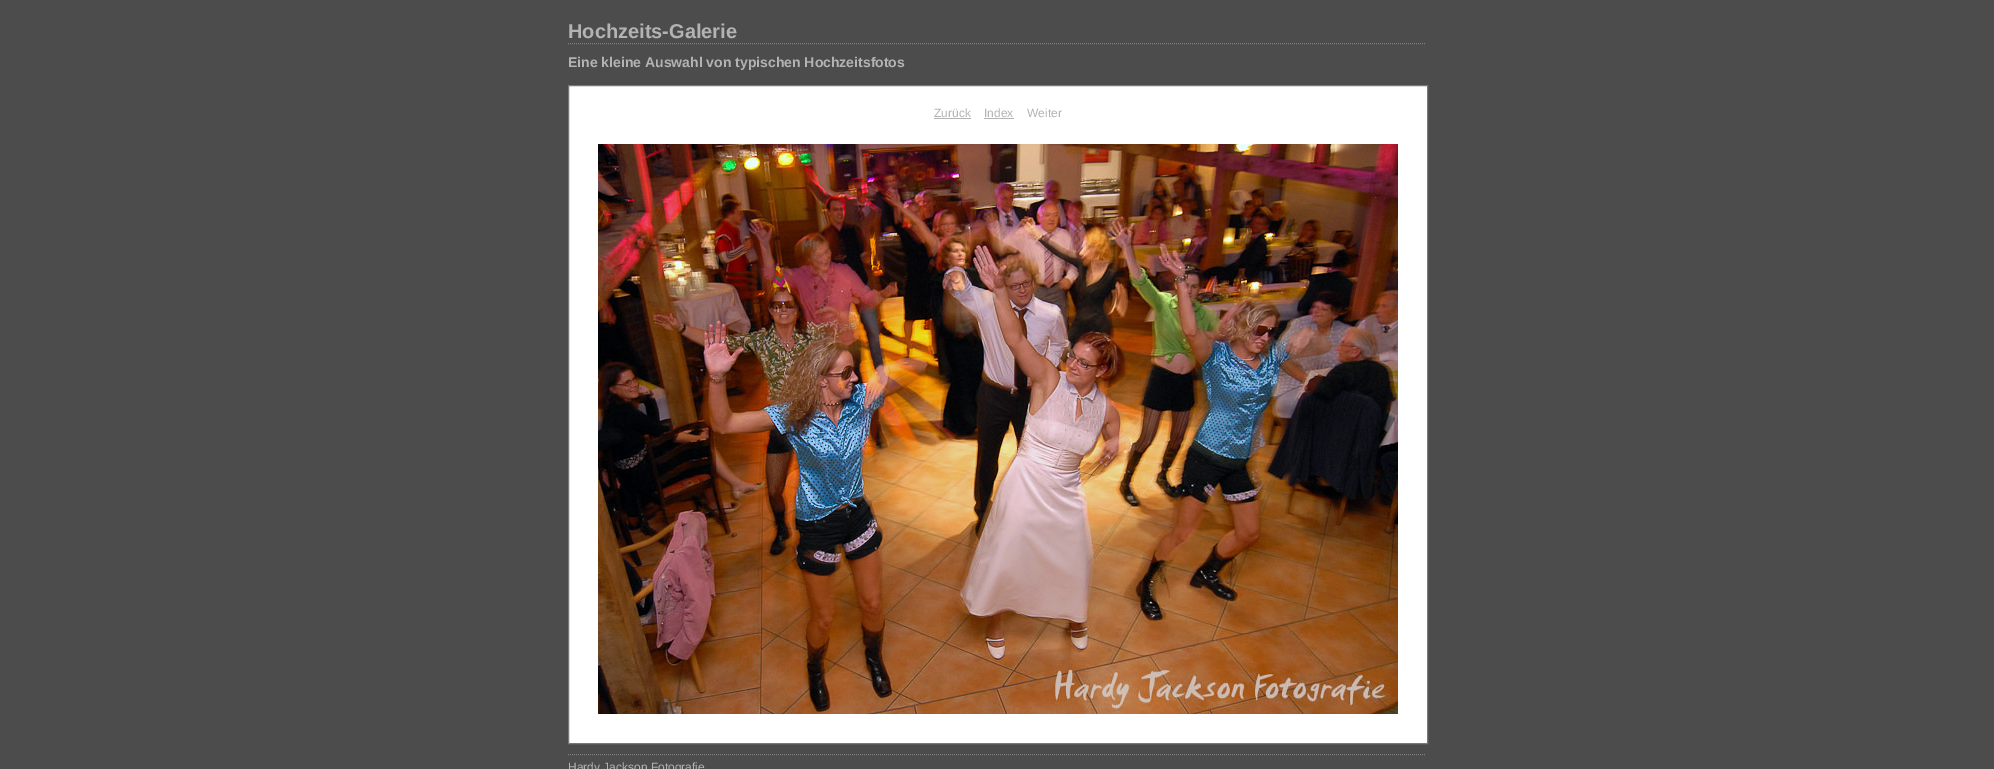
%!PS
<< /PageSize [1994 769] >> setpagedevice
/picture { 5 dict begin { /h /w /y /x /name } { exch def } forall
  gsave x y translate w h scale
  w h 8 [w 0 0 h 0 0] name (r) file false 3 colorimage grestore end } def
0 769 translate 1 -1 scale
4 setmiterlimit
0.298 setgray
0 0 1994 769 rectfill
0.498 setgray
[1 1] 0 setdash
newpath 568 43.5 moveto 1426 43.5 lineto stroke
/LiberationSans-Bold [20 0 0 -20 0 0] selectfont
0.702 setgray
568 38 moveto (Hochzeits-Galerie) show
/LiberationSans-Bold [14 0 0 -14 0 0] selectfont
568 67 moveto (Eine kleine Auswahl von typischen Hochzeitsfotos) show
0.498 setgray
newpath 568 754.5 moveto 1426 754.5 lineto stroke
1 setgray
newpath 568.5 85.5 moveto 1427.5 85.5 lineto 1427.5 743.5 lineto 568.5 743.5 lineto closepath gsave fill grestore
0.471 setgray
[] 0 setdash
stroke
/LiberationSans-Regular [12 0 0 -12 0 0] selectfont
0.702 setgray
934 117 moveto (Zurück) show
934 118 37 1 rectfill
984 117 moveto (Index) show
984 118 30 1 rectfill
1027 117 moveto (Weiter) show
(img1.rgb) 598 144 800 570 picture
568 771 moveto (Hardy Jackson Fotografie) show
showpage
